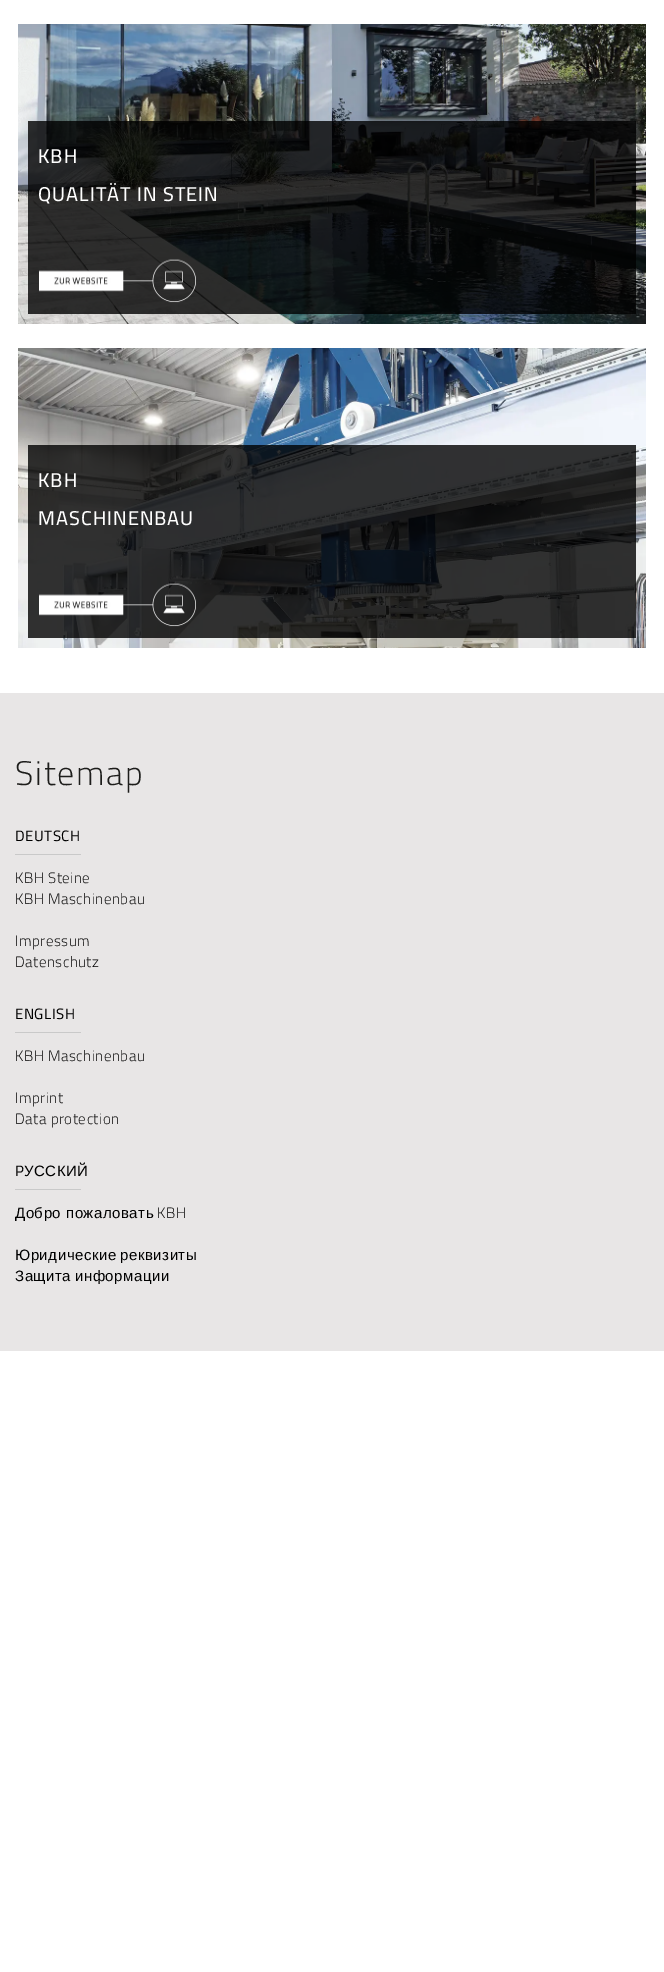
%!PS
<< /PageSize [664 1972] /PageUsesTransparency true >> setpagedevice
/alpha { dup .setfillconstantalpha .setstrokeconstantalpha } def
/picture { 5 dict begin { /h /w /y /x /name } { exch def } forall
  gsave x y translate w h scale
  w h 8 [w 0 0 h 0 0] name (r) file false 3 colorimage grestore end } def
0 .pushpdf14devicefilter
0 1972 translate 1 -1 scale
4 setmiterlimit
1 setgray
0 0 664 1972 rectfill
(img1.rgb) 18 24 628 300 picture
0.8 alpha
0 setgray
28 121 608 193 rectfill
/Cairo-Medium [20 0 0 -20 0 0] selectfont
1 alpha
1 setgray
38 163 moveto 1 0 (KBH) ashow
38 201 moveto 1 0 (QUALITÄT IN STEIN) ashow
(img2.rgb) 39 259 157 44 picture
(img3.rgb) 18 348 628 300 picture
0.8 alpha
0 setgray
28 445 608 193 rectfill
1 alpha
1 setgray
38 487 moveto 1 0 (KBH) ashow
38 525 moveto 1 0 (MASCHINENBAU) ashow
(img4.rgb) 39 583 157 44 picture
0.91 0.902 0.902 setrgbcolor
0 693 664 658 rectfill
/Cairo-Light [34 0 0 -34 0 0] selectfont
0.114 0.114 0.106 setrgbcolor
15 785 moveto 1.75 0 (Sitemap) ashow
0.788 setgray
15 854 66 1 rectfill
/Cairo-Regular [15 0 0 -15 0 0] selectfont
0 setgray
15 841 moveto 0.5 0 (DEUTSCH) ashow
/Cairo-Light [15 0 0 -15 0 0] selectfont
15 883 moveto 0.5 0 (KBH Steine) ashow
15 904 moveto 0.5 0 (KBH Maschinenbau) ashow
15 946 moveto 0.5 0 (Impressum) ashow
15 967 moveto 0.5 0 (Datenschutz) ashow
0.788 setgray
15 1032 66 1 rectfill
/Cairo-Regular [15 0 0 -15 0 0] selectfont
0 setgray
15 1019 moveto 0.5 0 (ENGLISH) ashow
/Cairo-Light [15 0 0 -15 0 0] selectfont
15 1061 moveto 0.5 0 (KBH Maschinenbau) ashow
15 1103 moveto 0.5 0 (Imprint) ashow
15 1124 moveto 0.5 0 (Data protection) ashow
0.788 setgray
15 1189 66 1 rectfill
/Cairo-Regular [15 0 0 -15 0 0] selectfont
0 setgray
15 1176 moveto 0.5 0 (P) ashow
/LiberationSans-Regular [15 0 0 -15 0 0] selectfont
24 1176 moveto 0.5 0 (УССКИЙ) ashow
15 1218 moveto 0.5 0 (Добро пожаловать) ashow
/Cairo-Light [15 0 0 -15 0 0] selectfont
157 1218 moveto 0.5 0 (KBH) ashow
/LiberationSans-Regular [15 0 0 -15 0 0] selectfont
15 1260 moveto -1 0 32 0.5 0 (Юридические реквизиты) awidthshow
15 1281 moveto -1 0 32 0.5 0 (Защита информации) awidthshow
.poppdf14devicefilter showpage
